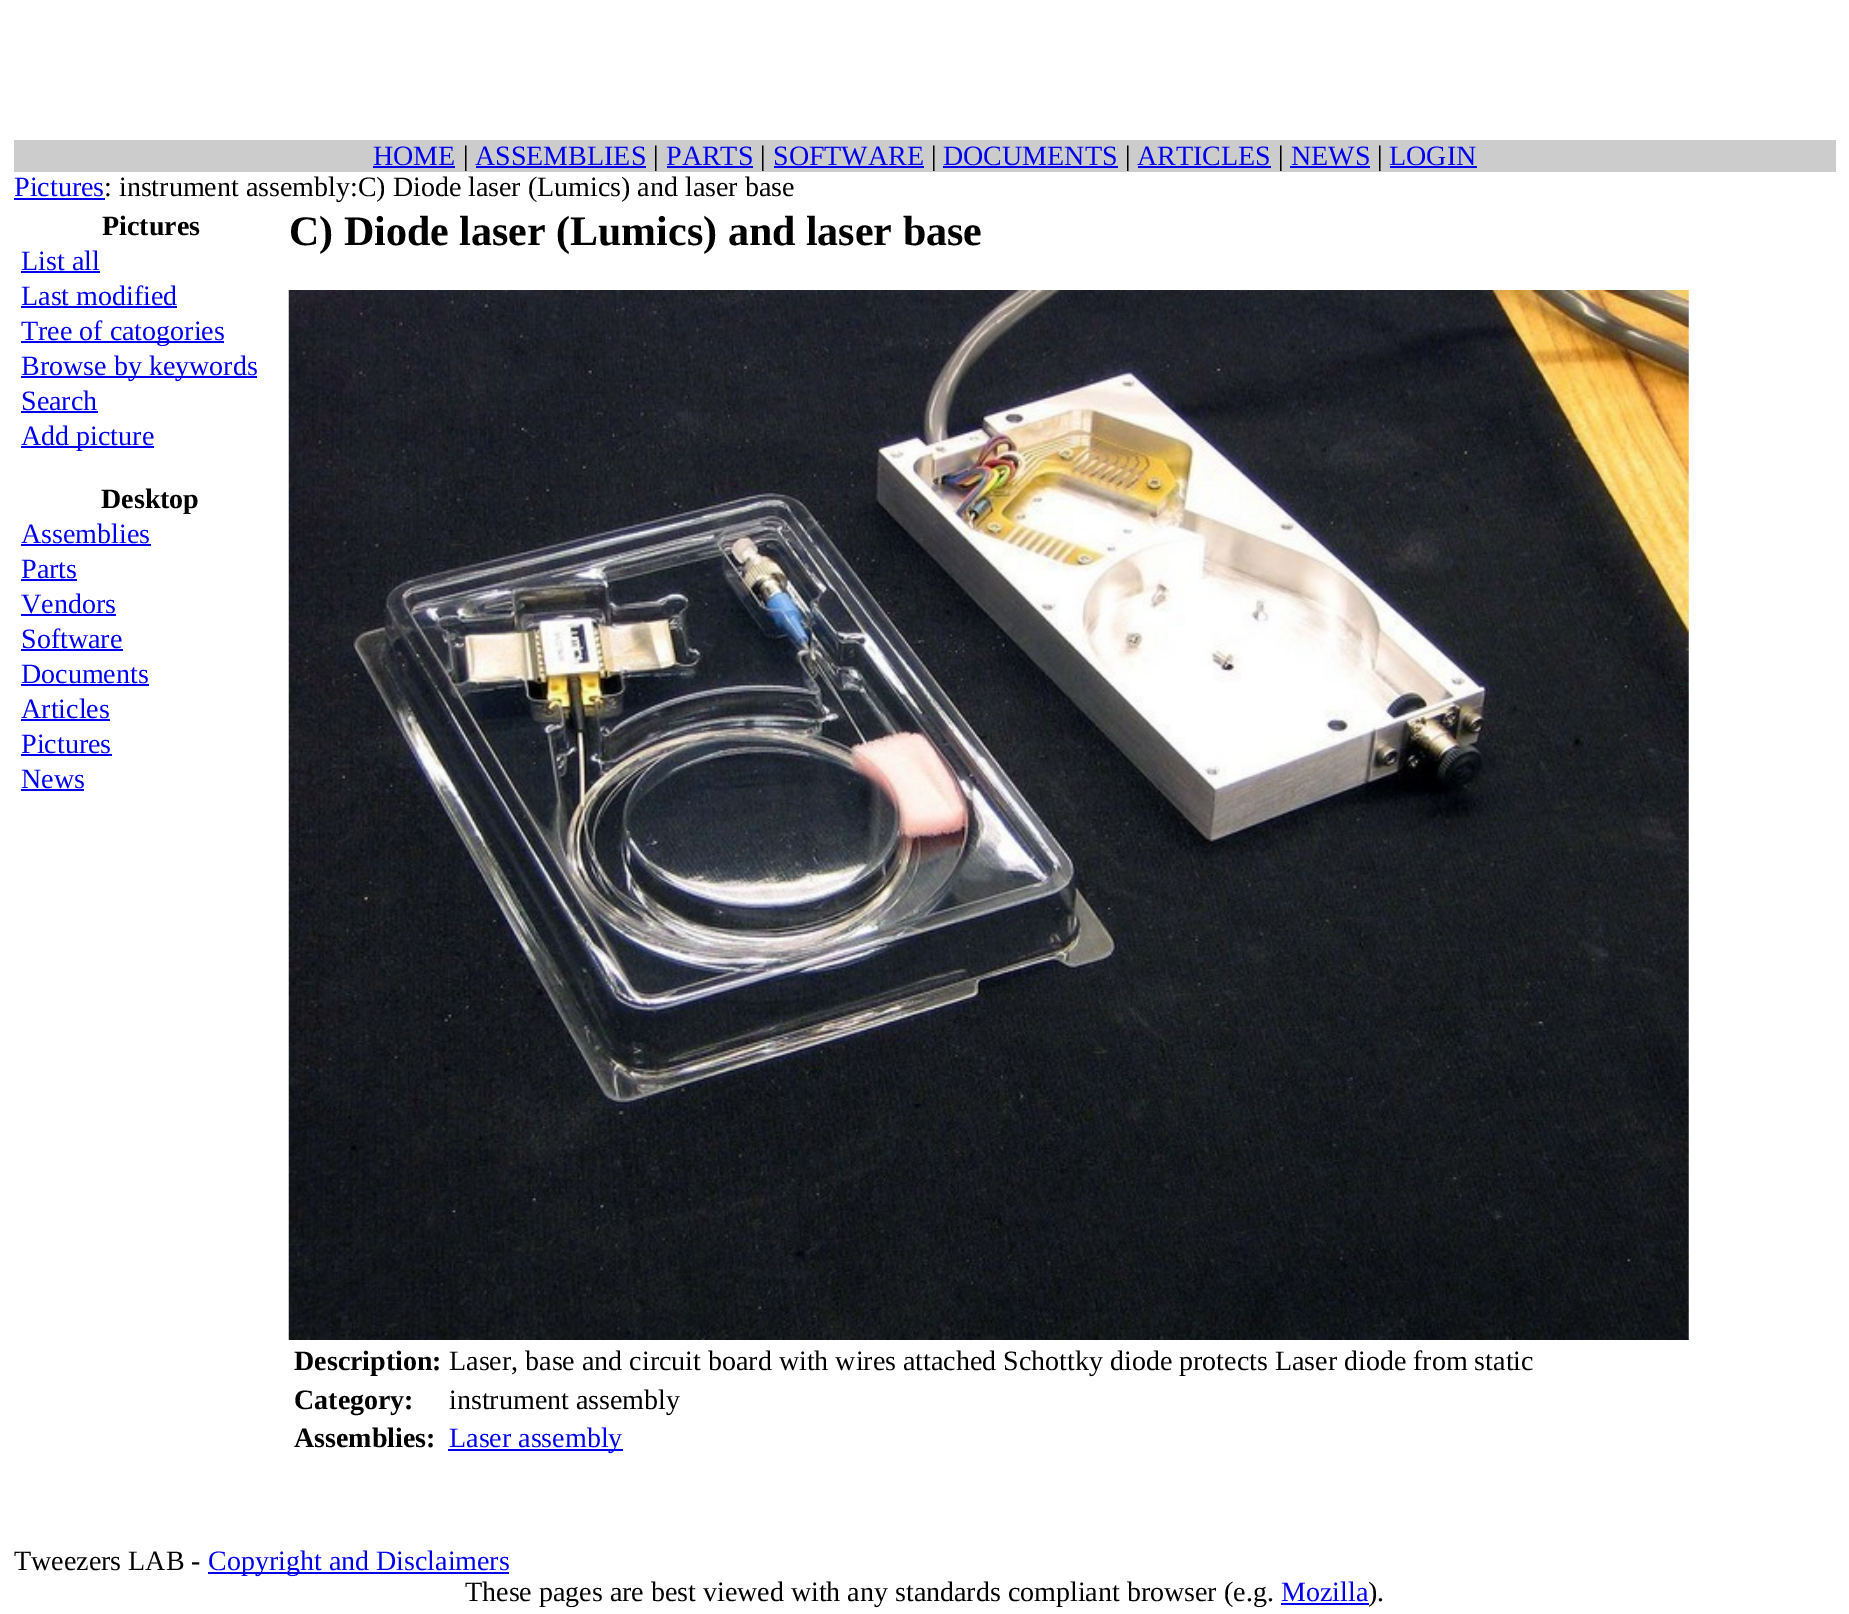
%!PS
<< /PageSize [1849 1614] >> setpagedevice
/picture { 5 dict begin { /h /w /y /x /name } { exch def } forall
  gsave x y translate w h scale
  w h 8 [w 0 0 h 0 0] name (r) file false 3 colorimage grestore end } def
0 1614 translate 1 -1 scale
4 setmiterlimit
1 setgray
0 0 1849 1614 rectfill
0.8 setgray
14 140 1822 32 rectfill
/LiberationSerif-Regular [28 0 0 -28 0 0] selectfont
0 0 0.933 setrgbcolor
373 165 moveto (HOME) show
373 166 82 2 rectfill
0 setgray
463 165 moveto (|) show
0 0 0.933 setrgbcolor
475 165 moveto (ASSEMBLIES) show
476 166 170 2 rectfill
0 setgray
653 165 moveto (|) show
0 0 0.933 setrgbcolor
666 165 moveto (PARTS) show
667 166 86 2 rectfill
0 setgray
760 165 moveto (|) show
0 0 0.933 setrgbcolor
773 165 moveto (SOFTWARE) show
774 166 150 2 rectfill
0 setgray
931 165 moveto (|) show
0 0 0.933 setrgbcolor
943 165 moveto (DOCUMENTS) show
943 166 175 2 rectfill
0 setgray
1125 165 moveto (|) show
0 0 0.933 setrgbcolor
1137 165 moveto (ARTICLES) show
1138 166 133 2 rectfill
0 setgray
1278 165 moveto (|) show
0 0 0.933 setrgbcolor
1291 165 moveto (NEWS) show
1290 166 80 2 rectfill
0 setgray
1377 165 moveto (|) show
0 0 0.933 setrgbcolor
1389 165 moveto (LOGIN) show
1390 166 87 2 rectfill
14 196 moveto (Pictures) show
14 198 91 2 rectfill
0 setgray
104 196 moveto (: instrument assembly:C\) Diode laser \(Lumics\) and laser base) show
/LiberationSerif-Bold [28 0 0 -28 0 0] selectfont
102 235 moveto (Pictures) show
/LiberationSerif-Regular [28 0 0 -28 0 0] selectfont
0 0 0.933 setrgbcolor
21 270 moveto (List all) show
21 271 79 2 rectfill
21 305 moveto (Last modified) show
21 306 156 2 rectfill
21 341 203 2 rectfill
21 340 moveto (Tree of catogories) show
21 376 236 2 rectfill
21 375 moveto (Browse by keywords) show
21 410 moveto (Search) show
21 411 77 2 rectfill
21 446 133 2 rectfill
21 445 moveto (Add picture) show
/LiberationSerif-Bold [28 0 0 -28 0 0] selectfont
0 setgray
101 508 moveto (Desktop) show
/LiberationSerif-Regular [28 0 0 -28 0 0] selectfont
0 0 0.933 setrgbcolor
21 543 moveto (Assemblies) show
21 544 130 2 rectfill
21 578 moveto (Parts) show
21 579 56 2 rectfill
21 613 moveto (Vendors) show
21 614 95 2 rectfill
21 648 moveto (Software) show
21 649 102 2 rectfill
21 683 moveto (Documents) show
21 684 128 2 rectfill
21 718 moveto (Articles) show
21 719 89 2 rectfill
21 753 moveto (Pictures) show
21 754 91 2 rectfill
21 788 moveto (News) show
21 789 63 2 rectfill
/LiberationSerif-Bold [42 0 0 -42 0 0] selectfont
0 setgray
289 245 moveto (C\) Diode laser \(Lumics\) and laser base) show
(img1.rgb) 288 290 1401 1050 picture
/LiberationSerif-Bold [28 0 0 -28 0 0] selectfont
294 1370 moveto (Description:) show
/LiberationSerif-Regular [28 0 0 -28 0 0] selectfont
449 1370 moveto (Laser, base and circuit board with wires attached Schottky diode protects Laser diode from static) show
/LiberationSerif-Bold [28 0 0 -28 0 0] selectfont
294 1409 moveto (Category:) show
/LiberationSerif-Regular [28 0 0 -28 0 0] selectfont
449 1409 moveto (instrument assembly) show
/LiberationSerif-Bold [28 0 0 -28 0 0] selectfont
294 1447 moveto (Assemblies:) show
0 0 0.933 setrgbcolor
448 1449 175 2 rectfill
/LiberationSerif-Regular [28 0 0 -28 0 0] selectfont
449 1447 moveto (Laser assembly) show
0 setgray
14 1570 moveto (Tweezers LAB -) show
0 0 0.933 setrgbcolor
208 1572 301 2 rectfill
208 1570 moveto (Copyright and Disclaimers) show
0 setgray
465 1601 moveto (These pages are best viewed with any standards compliant browser \(e.g.) show
0 0 0.933 setrgbcolor
1281 1601 moveto (Mozilla) show
1281 1603 88 2 rectfill
0 setgray
1368 1601 moveto (\).) show
showpage
